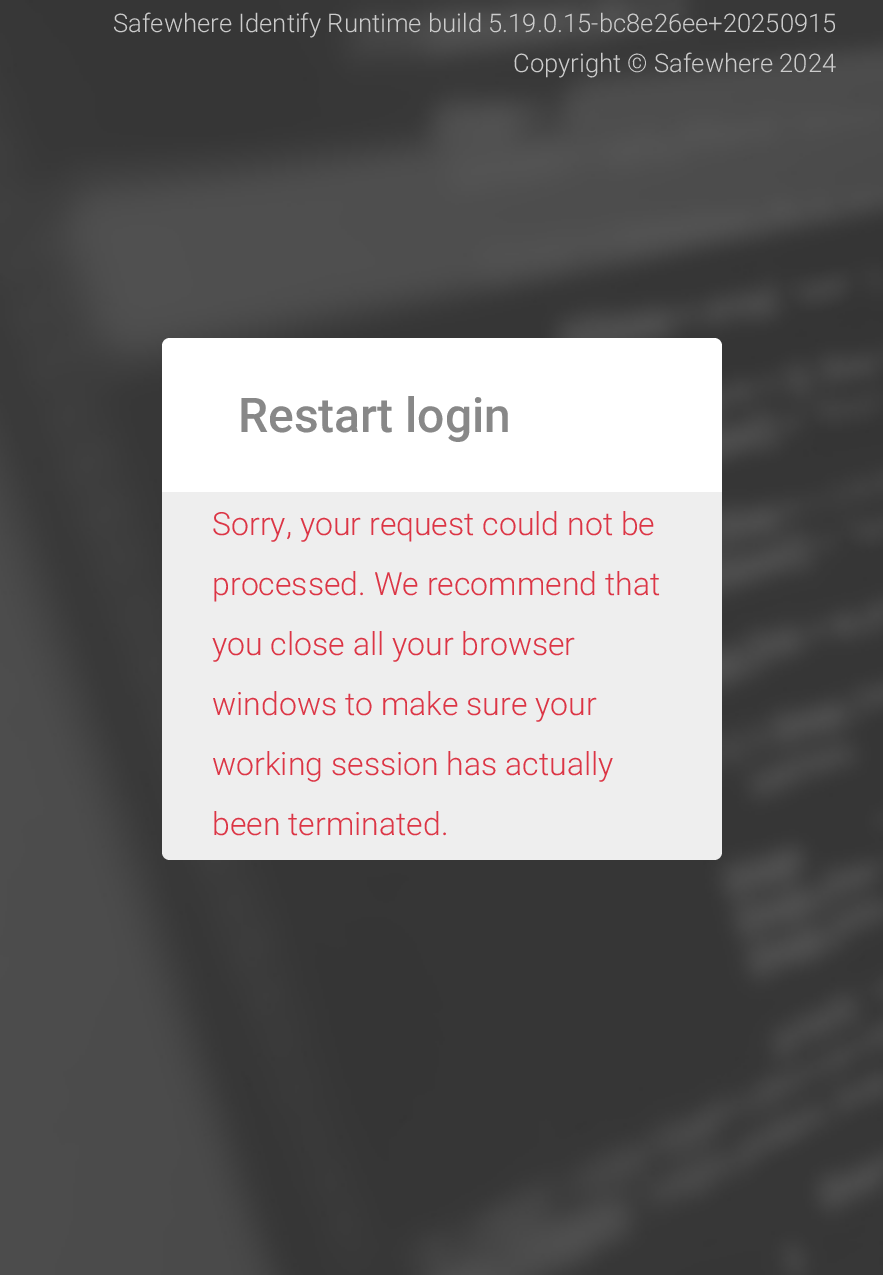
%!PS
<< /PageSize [883 1275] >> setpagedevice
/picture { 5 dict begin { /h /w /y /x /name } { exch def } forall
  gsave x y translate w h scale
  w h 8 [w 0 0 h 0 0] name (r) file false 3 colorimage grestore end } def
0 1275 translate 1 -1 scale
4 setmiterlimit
1 setgray
0 0 883 1275 rectfill
(img1.rgb) 0 0 883 1275 picture
/Roboto-Light [25.6 0 0 -25.6 0 0] selectfont
0.8 setgray
113 32 moveto (Safewhere Identify Runtime build 5.19.0.15-bc8e26ee+20250915) show
513 72 moveto (Copyright © Safewhere 2024) show
1 setgray
newpath 170 338 moveto 714 338 lineto 718.5 338 722 341.5 722 346 curveto 722 492 lineto 162 492 lineto 162 346 lineto 162 341.5 165.5 338 170 338 curveto closepath fill
/Roboto-Medium [48 0 0 -48 0 0] selectfont
0.533 setgray
238 432 moveto (Restart login) show
0.933 setgray
newpath 162 492 moveto 722 492 lineto 722 852 lineto 722 856.5 718.5 860 714 860 curveto 170 860 lineto 165.5 860 162 856.5 162 852 curveto closepath fill
/Roboto-Light [32 0 0 -32 0 0] selectfont
0.863 0.208 0.271 setrgbcolor
212 535 moveto (Sorry, your request could not be) show
212 595 moveto (processed. We recommend that) show
212 655 moveto (you close all your browser) show
212 715 moveto (windows to make sure your) show
212 775 moveto (working session has actually) show
212 835 moveto (been terminated.) show
showpage
